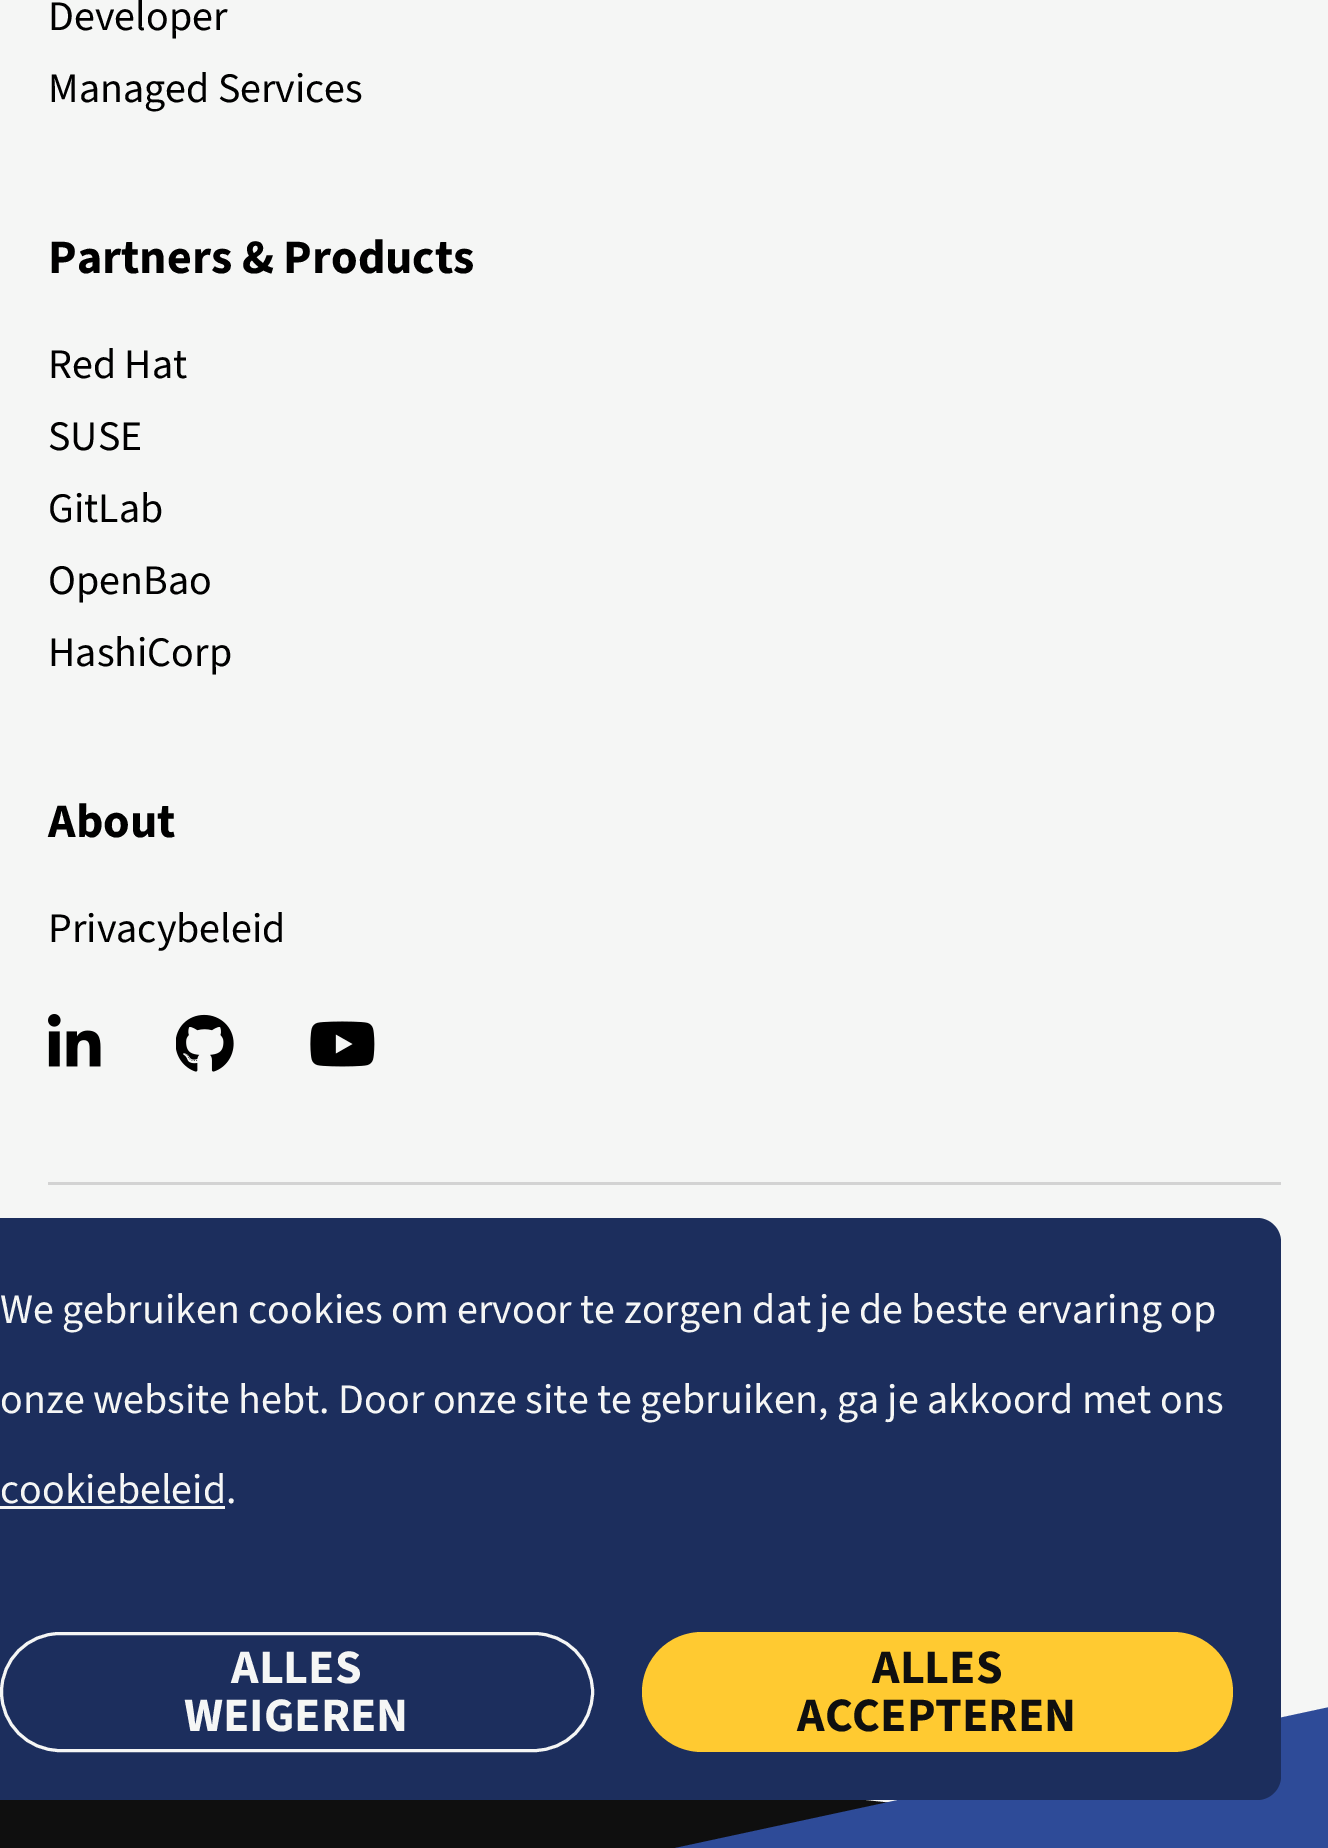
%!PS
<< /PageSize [1328 1848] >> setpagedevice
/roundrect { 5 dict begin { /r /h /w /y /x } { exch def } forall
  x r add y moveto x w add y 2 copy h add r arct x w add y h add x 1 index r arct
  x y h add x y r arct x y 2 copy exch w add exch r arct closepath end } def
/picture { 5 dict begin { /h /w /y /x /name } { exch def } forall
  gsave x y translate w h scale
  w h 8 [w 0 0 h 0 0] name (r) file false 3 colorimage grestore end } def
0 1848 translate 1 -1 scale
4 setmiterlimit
0.961 0.965 0.961 setrgbcolor
0 0 1328 1848 rectfill
/SourceSans3-Regular [42 0 0 -42 0 0] selectfont
0 setgray
48 30 moveto (Developer) show
48 102 moveto (Managed Services) show
/SourceSans3-Bold [48 0 0 -48 0 0] selectfont
48 273 moveto (Partners & Products) show
/SourceSans3-Regular [42 0 0 -42 0 0] selectfont
48 378 moveto (Red Hat) show
48 450 moveto (SUSE) show
48 522 moveto (GitLab) show
48 594 moveto (OpenBao) show
48 666 moveto (HashiCorp) show
/SourceSans3-Bold [48 0 0 -48 0 0] selectfont
48 837 moveto (About) show
/SourceSans3-Regular [42 0 0 -42 0 0] selectfont
48 942 moveto (Privacybeleid) show
(img1.rgb) 48 1014 53 53 picture
(img2.rgb) 176 1014 58 58 picture
(img3.rgb) 310 1021 65 46 picture
0.827 setgray
48 1182 1233 3 rectfill
0.059 setgray
newpath 0 1709 moveto 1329 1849 lineto 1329 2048 lineto 0 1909 lineto closepath fill
0.18 0.294 0.596 setrgbcolor
newpath 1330 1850 moveto 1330 1707 lineto 666 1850 lineto closepath eofill
0.11 0.18 0.365 setrgbcolor
-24 1218 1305 582 24 roundrect fill
0.961 0.965 0.961 setrgbcolor
0 1323 moveto (We gebruiken cookies om ervoor te zorgen dat je de beste ervaring op) show
0 1413 moveto (onze website hebt. Door onze site te gebruiken, ga je akkoord met ons) show
0 1503 moveto (cookiebeleid.) show
0 1506 225 3 rectfill
3 setlinewidth
1.5 1633.5 591 117 58.5 roundrect stroke
/SourceSans3-Bold [48 0 0 -48 0 0] selectfont
231 1683 moveto (ALLES) show
184 1731 moveto (WEIGEREN) show
1 0.792 0.192 setrgbcolor
642 1632 591 120 60 roundrect fill
0.059 setgray
872 1683 moveto (ALLES) show
797 1731 moveto (ACCEPTEREN) show
showpage
